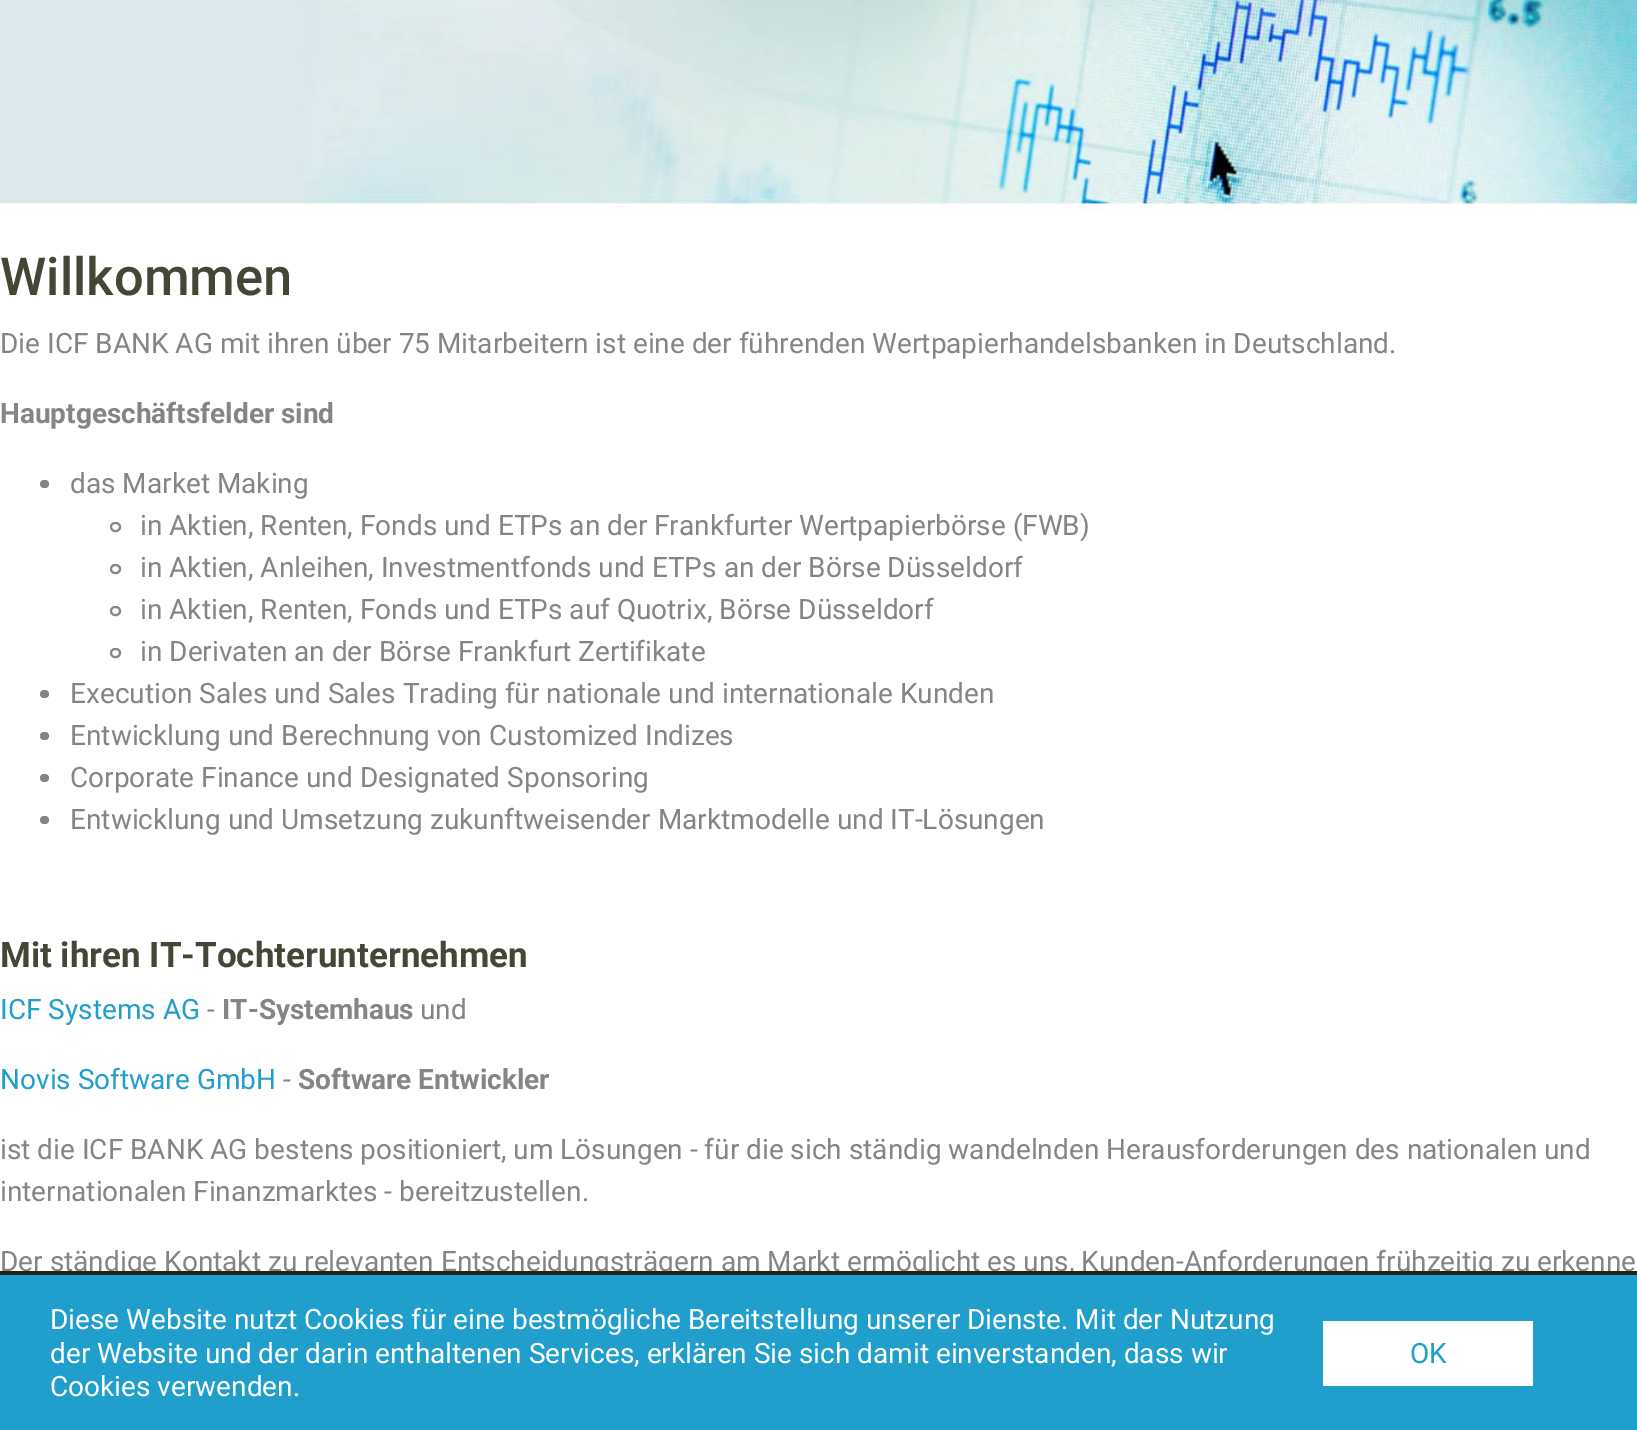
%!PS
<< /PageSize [1637 1430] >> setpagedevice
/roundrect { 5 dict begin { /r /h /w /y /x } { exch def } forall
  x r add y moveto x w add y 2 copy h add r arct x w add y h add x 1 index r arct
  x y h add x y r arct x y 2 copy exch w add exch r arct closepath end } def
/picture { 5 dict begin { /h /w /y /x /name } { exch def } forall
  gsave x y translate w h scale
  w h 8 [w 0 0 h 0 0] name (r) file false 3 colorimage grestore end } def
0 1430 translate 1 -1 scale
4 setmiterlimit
1 setgray
0 0 1637 1430 rectfill
(img1.rgb) 0 0 1637 212 picture
/Roboto-Medium [52.5 0 0 -52.5 0 0] selectfont
0.275 0.275 0.216 setrgbcolor
0 295 moveto (Willkommen) show
/Roboto-Regular [28 0 0 -28 0 0] selectfont
0.522 setgray
0 353 moveto (Die ICF BANK AG mit ihren über 75 Mitarbeitern ist eine der führenden Wertpapierhandelsbanken in Deutschland.) show
/Roboto-Bold [28 0 0 -28 0 0] selectfont
0 423 moveto (Hauptgeschäftsfelder sind) show
40 480 9 8 4 roundrect fill
/Roboto-Regular [28 0 0 -28 0 0] selectfont
70 493 moveto (das Market Making) show
2 setlinewidth
111 523 9 8 4 roundrect stroke
140 535 moveto (in Aktien, Renten, Fonds und ETPs an der Frankfurter Wertpapierbörse \(FWB\)) show
111 565 9 8 4 roundrect stroke
140 577 moveto (in Aktien, Anleihen, Investmentfonds und ETPs an der Börse Düsseldorf) show
111 607 9 8 4 roundrect stroke
140 619 moveto (in Aktien, Renten, Fonds und ETPs auf Quotrix, Börse Düsseldorf) show
111 649 9 8 4 roundrect stroke
140 661 moveto (in Derivaten an der Börse Frankfurt Zertifikate) show
40 690 9 8 4 roundrect fill
70 703 moveto (Execution Sales und Sales Trading für nationale und internationale Kunden) show
40 732 9 8 4 roundrect fill
70 745 moveto (Entwicklung und Berechnung von Customized Indizes) show
40 774 9 8 4 roundrect fill
70 787 moveto (Corporate Finance und Designated Sponsoring) show
40 816 9 8 4 roundrect fill
70 829 moveto (Entwicklung und Umsetzung zukunftweisender Marktmodelle und IT-Lösungen) show
/Roboto-Bold [35 0 0 -35 0 0] selectfont
0.275 0.275 0.216 setrgbcolor
0 967 moveto (Mit ihren IT-Tochterunternehmen) show
/Roboto-Regular [28 0 0 -28 0 0] selectfont
0.125 0.624 0.8 setrgbcolor
0 1019 moveto (ICF Systems AG) show
0.522 setgray
207 1019 moveto (-) show
/Roboto-Bold [28 0 0 -28 0 0] selectfont
222 1019 moveto (IT-Systemhaus) show
/Roboto-Regular [28 0 0 -28 0 0] selectfont
420 1019 moveto (und) show
0.125 0.624 0.8 setrgbcolor
0 1089 moveto (Novis Software GmbH) show
0.522 setgray
283 1089 moveto (-) show
/Roboto-Bold [28 0 0 -28 0 0] selectfont
298 1089 moveto (Software Entwickler) show
/Roboto-Regular [28 0 0 -28 0 0] selectfont
0 1159 moveto (ist die ICF BANK AG bestens positioniert, um Lösungen - für die sich ständig wandelnden Herausforderungen des nationalen und) show
0 1201 moveto (internationalen Finanzmarktes - bereitzustellen.) show
0 1271 moveto (Der ständige Kontakt zu relevanten Entscheidungsträgern am Markt ermöglicht es uns, Kunden-Anforderungen frühzeitig zu erkenne) show
0.125 0.624 0.8 setrgbcolor
0 1275 1637 155 rectfill
0.141 0.141 0.082 setrgbcolor
0 1271 1637 4 rectfill
1 setgray
50 1329 moveto (Diese Website nutzt Cookies für eine bestmögliche Bereitstellung unserer Dienste. Mit der Nutzung) show
50 1363 moveto (der Website und der darin enthaltenen Services, erklären Sie sich damit einverstanden, dass wir) show
50 1396 moveto (Cookies verwenden.) show
1323 1321 210 65 rectfill
0.125 0.624 0.8 setrgbcolor
1410 1363 moveto (OK) show
showpage
